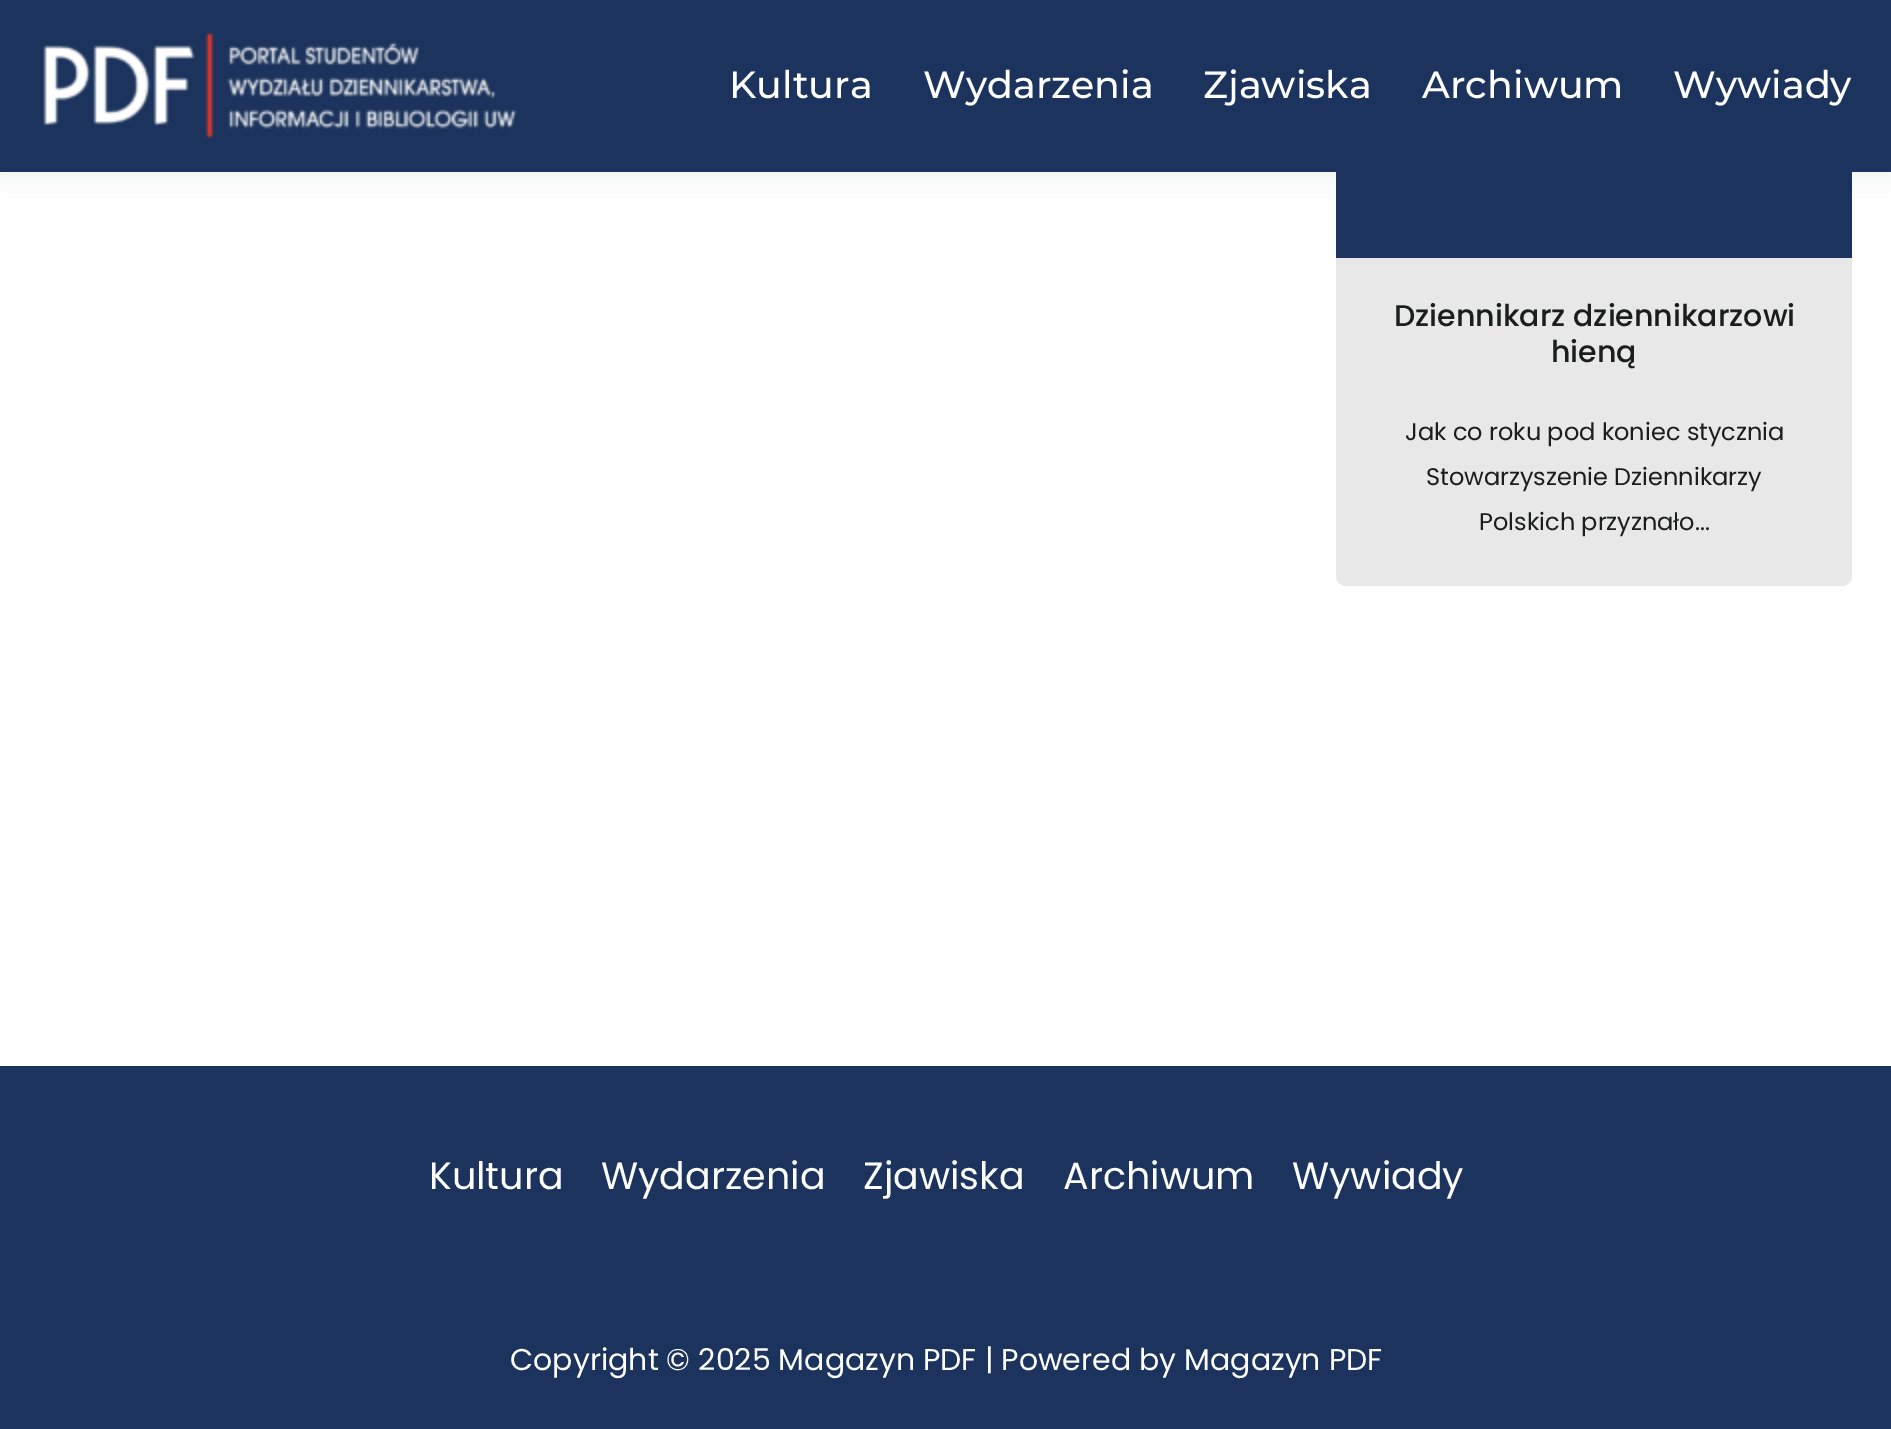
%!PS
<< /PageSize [1891 1429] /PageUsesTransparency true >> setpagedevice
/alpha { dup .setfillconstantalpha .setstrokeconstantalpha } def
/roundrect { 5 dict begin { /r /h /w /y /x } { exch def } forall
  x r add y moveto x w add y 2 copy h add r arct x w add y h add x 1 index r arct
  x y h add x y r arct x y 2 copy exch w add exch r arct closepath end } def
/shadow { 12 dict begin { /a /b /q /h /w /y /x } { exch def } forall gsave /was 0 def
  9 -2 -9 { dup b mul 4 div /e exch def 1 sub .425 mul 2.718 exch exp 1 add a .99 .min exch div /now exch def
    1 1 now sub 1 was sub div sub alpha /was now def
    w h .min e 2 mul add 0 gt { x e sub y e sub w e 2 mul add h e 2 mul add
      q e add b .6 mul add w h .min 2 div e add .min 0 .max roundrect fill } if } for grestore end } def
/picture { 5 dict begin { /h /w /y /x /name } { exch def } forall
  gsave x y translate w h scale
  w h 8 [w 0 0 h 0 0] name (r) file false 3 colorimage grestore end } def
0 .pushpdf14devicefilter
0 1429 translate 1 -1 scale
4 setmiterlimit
1 setgray
0 0 1891 1429 rectfill
0.91 setgray
1336 -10 516 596 10 roundrect fill
(img2.rgb) 1336 172 516 86 picture
0.141 0.196 0.259 setrgbcolor
0 4 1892 172 0 10 0.07 shadow
0.11 0.204 0.365 setrgbcolor
0 0 1891 172 rectfill
(img1.rgb) 43 32 474 107 picture
/Montserrat-Thin [38 0 0 -38 0 0] selectfont
1 setgray
729 98 moveto (Kultura) show
923 98 moveto (Wydarzenia) show
1203 98 moveto (Zjawiska) show
1422 98 moveto (Archiwum) show
1673 98 moveto (Wywiady) show
/Poppins-Medium [30 0 0 -30 0 0] selectfont
0.11 0.114 0.114 setrgbcolor
1394 326 moveto (Dziennikarz dziennikarzowi) show
1551 362 moveto (hieną) show
/Poppins-Regular [24 0 0 -24 0 0] selectfont
1405 440 moveto (Jak co roku pod koniec stycznia) show
1426 485 moveto (Stowarzyszenie Dziennikarzy) show
1479 530 moveto (Polskich przyznało...) show
0.11 0.204 0.365 setrgbcolor
0 1066 1891 363 rectfill
/Poppins-Regular [38 0 0 -38 0 0] selectfont
1 setgray
429 1189 moveto (Kultura) show
601 1189 moveto (Wydarzenia) show
863 1189 moveto (Zjawiska) show
1063 1189 moveto (Archiwum) show
1292 1189 moveto (Wywiady) show
/Poppins-Regular [30 0 0 -30 0 0] selectfont
510 1370 moveto (Copyright © 2025 Magazyn PDF | Powered by Magazyn PDF) show
.poppdf14devicefilter showpage
